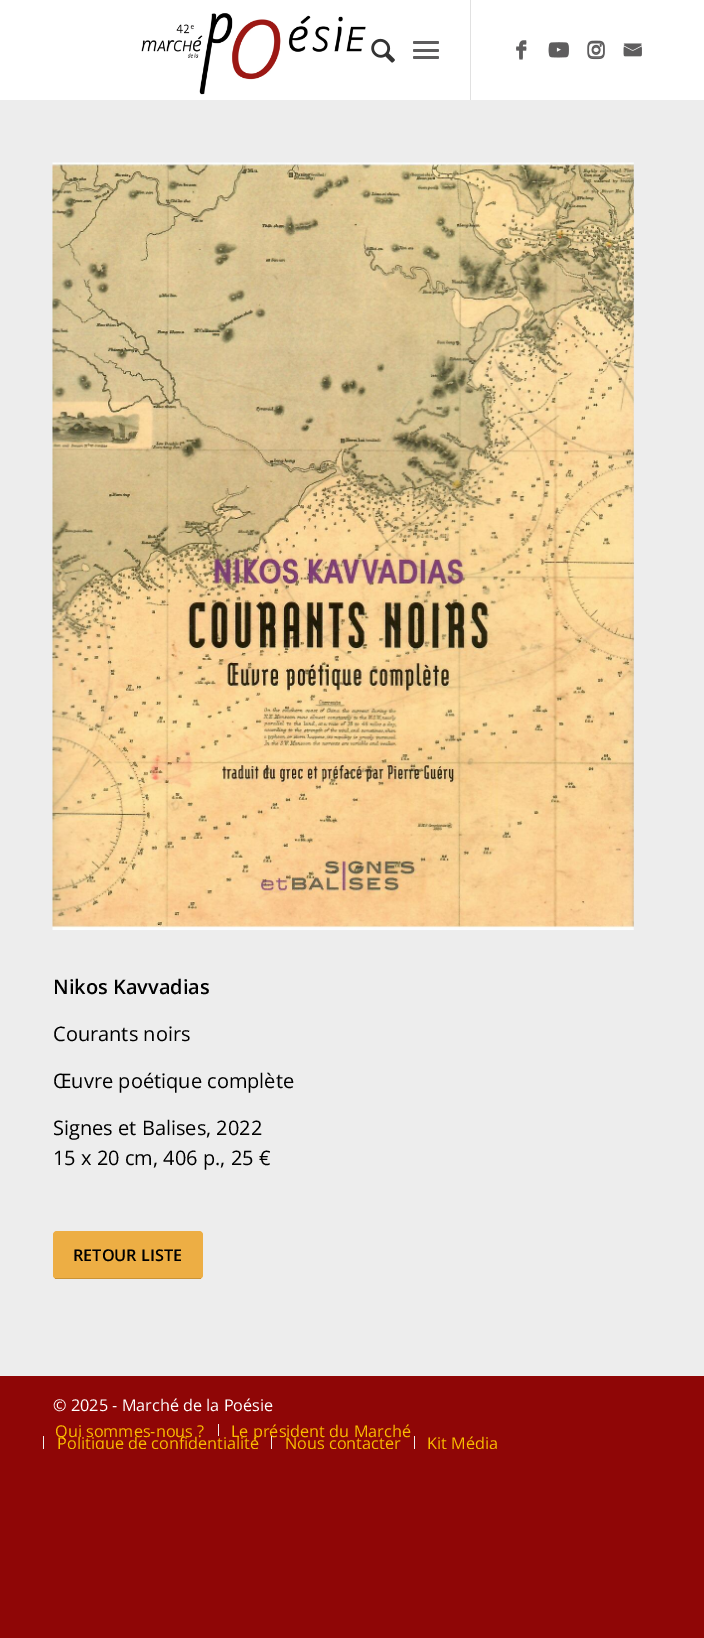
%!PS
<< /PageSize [704 1638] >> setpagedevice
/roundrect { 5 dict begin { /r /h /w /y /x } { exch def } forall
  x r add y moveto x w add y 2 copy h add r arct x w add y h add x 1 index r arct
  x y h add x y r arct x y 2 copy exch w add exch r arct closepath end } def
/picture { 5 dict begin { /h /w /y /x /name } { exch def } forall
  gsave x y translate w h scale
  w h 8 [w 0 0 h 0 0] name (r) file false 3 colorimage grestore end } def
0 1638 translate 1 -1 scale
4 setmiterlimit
0.561 0.024 0.024 setrgbcolor
0 0 704 1638 rectfill
1 setgray
0 0 704 100 rectfill
(img1.rgb) 141 13 225 82 picture
0.882 setgray
470 0 1 100 rectfill
(img2.rgb) 371 38 24 25 picture
0.369 0.365 0.369 setrgbcolor
413 49 26 3 1.5 roundrect fill
413 41 26 3 1.5 roundrect fill
413 56 26 3 1.5 roundrect fill
(img3.rgb) 516 41 11 19 picture
(img4.rgb) 548 44 21 14 picture
(img5.rgb) 587 42 18 18 picture
(img6.rgb) 623 44 19 13 picture
(img7.rgb) 516 40 11 19 picture
(img8.rgb) 548 42 21 13 picture
(img9.rgb) 587 40 18 18 picture
(img10.rgb) 623 43 19 12 picture
0.929 setgray
0 100 704 1275 rectfill
(img11.rgb) 52 162 582 768 picture
/OpenSans-SemiBold [20 0 0 -20 0 0] selectfont
0 setgray
53 994 moveto (Nikos Kavvadias) show
/OpenSans-Regular [20 0 0 -20 0 0] selectfont
53 1041 moveto (Courants noirs) show
53 1088 moveto (Œuvre poétique complète) show
53 1135 moveto (Signes et Balises, 2022) show
53 1165 moveto (15 x 20 cm, 406 p., 25 €) show
0.929 0.682 0.267 setrgbcolor
53 1231 150 48 4 roundrect fill
0.792 0.576 0.212 setrgbcolor
55 1278 146 1 rectfill
/OpenSans-SemiBold [16.25 0 0 -16.25 0 0] selectfont
0 setgray
73 1261 moveto (RETOUR LISTE) show
0.933 setgray
0 1375 704 1 rectfill
/OpenSans-Regular [16.25 0 0 -16.25 0 0] selectfont
1 setgray
53 1411 moveto (© 2025 - Marché de la Poésie) show
0.98 0.737 0 setrgbcolor
55 1437 moveto (Qui sommes-nous ?) show
0.933 setgray
218 1424 1 12 rectfill
0.98 0.737 0 setrgbcolor
231 1437 moveto (Le président du Marché) show
0.933 setgray
43 1436 1 13 rectfill
gsave
34 1416 600 33 rectclip
0.98 0.737 0 setrgbcolor
57 1449 moveto (Politique de confidentialité) show
grestore
271 1436 1 13 rectfill
gsave
34 1416 600 33 rectclip
0.98 0.737 0 setrgbcolor
285 1449 moveto (Nous contacter) show
grestore
414 1436 1 13 rectfill
gsave
34 1416 600 33 rectclip
0.98 0.737 0 setrgbcolor
427 1449 moveto (Kit Média) show
grestore
showpage
